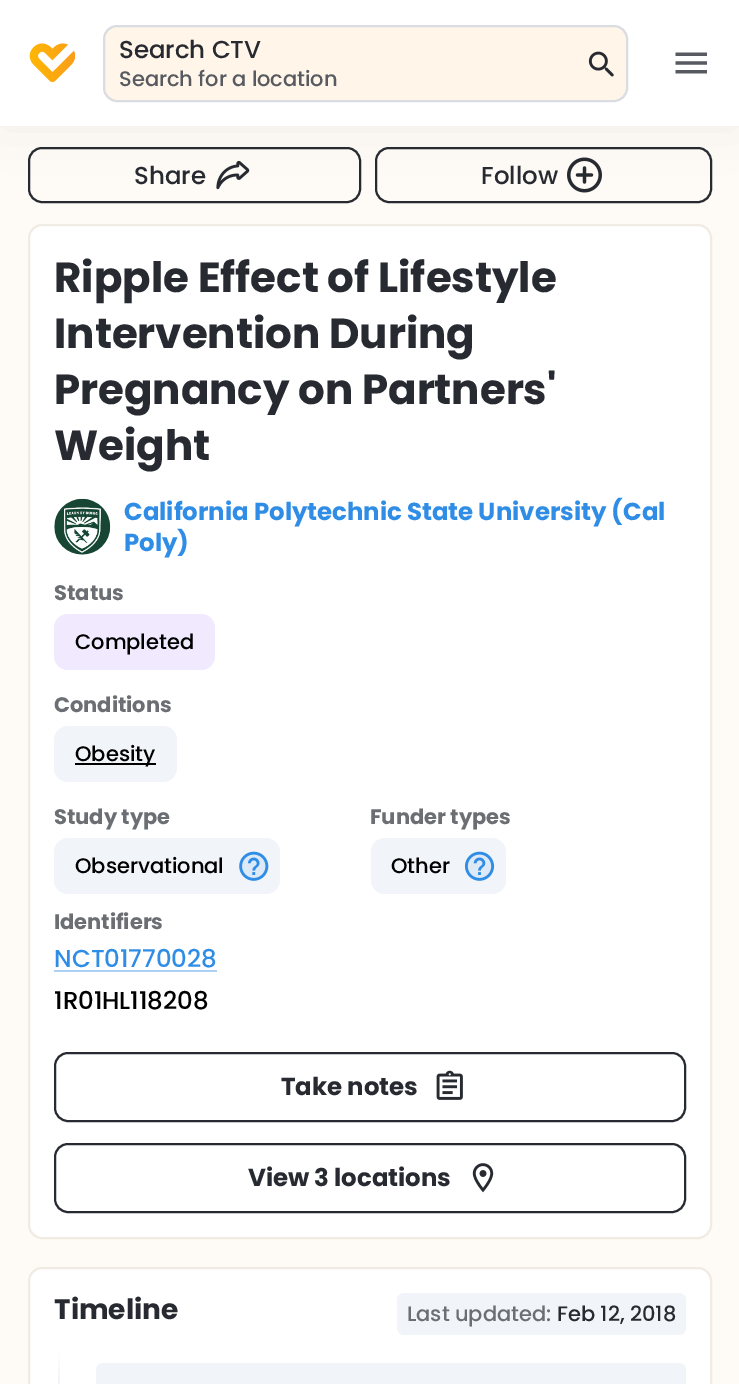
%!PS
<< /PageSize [739 1384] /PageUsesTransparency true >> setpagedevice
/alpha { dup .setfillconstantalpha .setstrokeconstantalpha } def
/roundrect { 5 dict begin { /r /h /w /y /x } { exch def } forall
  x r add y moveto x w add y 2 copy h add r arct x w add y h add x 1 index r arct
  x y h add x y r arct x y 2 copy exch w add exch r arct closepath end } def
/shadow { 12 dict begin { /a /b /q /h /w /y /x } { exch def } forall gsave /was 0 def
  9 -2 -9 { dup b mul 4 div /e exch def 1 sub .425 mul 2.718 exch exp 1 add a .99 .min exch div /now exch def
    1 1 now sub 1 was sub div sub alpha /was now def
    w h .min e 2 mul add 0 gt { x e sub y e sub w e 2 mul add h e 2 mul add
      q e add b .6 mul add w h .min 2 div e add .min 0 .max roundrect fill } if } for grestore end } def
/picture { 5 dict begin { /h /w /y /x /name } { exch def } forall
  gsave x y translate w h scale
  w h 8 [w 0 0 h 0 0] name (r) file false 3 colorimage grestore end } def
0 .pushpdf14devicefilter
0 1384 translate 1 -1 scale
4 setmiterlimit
0.996 0.98 0.961 setrgbcolor
0 0 739 1384 rectfill
0.153 0.165 0.188 setrgbcolor
2 setlinewidth
29 148 331 54 13 roundrect stroke
(img4.rgb) 216 160 34 30 picture
376 148 335 54 13 roundrect stroke
(img5.rgb) 567 157 35 36 picture
0 setgray
0 0 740 126 0 28 0.06 shadow
1 setgray
0 0 739 126 rectfill
(img1.rgb) 29 43 46 39 picture
1 0.961 0.914 setrgbcolor
104 26 523 75 13 roundrect gsave fill grestore
0.851 0.863 0.882 setrgbcolor
stroke
/Poppins-Medium [24.5 0 0 -24.5 0 0] selectfont
0.153 0.165 0.188 setrgbcolor
119 58 moveto -0.05 0 (Search CTV) ashow
/Poppins-Medium [21 0 0 -21 0 0] selectfont
0.341 0.353 0.376 setrgbcolor
119 86 moveto -0.05 0 (Search for a location) ashow
(img2.rgb) 588 51 26 26 picture
(img3.rgb) 675 52 32 22 picture
/Poppins-Medium [24.5 0 0 -24.5 0 0] selectfont
0.153 0.165 0.188 setrgbcolor
134 184 moveto -0.05 0 (Share) ashow
481 184 moveto -0.05 0 (Follow) ashow
1 setgray
29 225 682 1013 13 roundrect gsave fill grestore
0.945 0.925 0.89 setrgbcolor
stroke
/Poppins-Bold [42 0 0 -42 0 0] selectfont
0.153 0.165 0.188 setrgbcolor
54 292 moveto -0.05 0 (Ripple Effect of Lifestyle) ashow
54 348 moveto -0.05 0 (Intervention During) ashow
54 404 moveto -0.05 0 (Pregnancy on Partners') ashow
54 460 moveto -0.05 0 (Weight) ashow
(img6.rgb) 54 498 57 57 picture
/Poppins-Bold [24.5 0 0 -24.5 0 0] selectfont
0.184 0.553 0.898 setrgbcolor
124 520 moveto -0.05 0 (California Polytechnic State University \(Cal) ashow
124 551 moveto -0.05 0 (Poly\)) ashow
/Poppins-Bold [21 0 0 -21 0 0] selectfont
0.42 0.431 0.451 setrgbcolor
54 600 moveto -0.05 0 (Status) ashow
0.945 0.918 1 setrgbcolor
54 614 161 56 14 roundrect fill
/Poppins-Medium [21 0 0 -21 0 0] selectfont
0 setgray
75 649 moveto -0.05 0 (Completed) ashow
/Poppins-Bold [21 0 0 -21 0 0] selectfont
0.42 0.431 0.451 setrgbcolor
54 712 moveto -0.05 0 (Conditions) ashow
0.945 0.957 0.976 setrgbcolor
54 726 123 56 14 roundrect fill
0 setgray
75 763 81 2 rectfill
/Poppins-Medium [21 0 0 -21 0 0] selectfont
75 761 moveto -0.05 0 (Obesity) ashow
/Poppins-Bold [21 0 0 -21 0 0] selectfont
0.42 0.431 0.451 setrgbcolor
54 824 moveto -0.05 0 (Study type) ashow
0.945 0.957 0.976 setrgbcolor
54 838 226 56 14 roundrect fill
/Poppins-Medium [21 0 0 -21 0 0] selectfont
0 setgray
75 873 moveto -0.05 0 (Observational) ashow
(img7.rgb) 239 851 30 30 picture
/Poppins-Bold [21 0 0 -21 0 0] selectfont
0.42 0.431 0.451 setrgbcolor
370 824 moveto -0.05 0 (Funder types) ashow
0.945 0.957 0.976 setrgbcolor
371 838 135 56 14 roundrect fill
/Poppins-Medium [21 0 0 -21 0 0] selectfont
0 setgray
391 873 moveto -0.05 0 (Other) ashow
(img8.rgb) 464 851 31 30 picture
/Poppins-Bold [21 0 0 -21 0 0] selectfont
0.42 0.431 0.451 setrgbcolor
54 929 moveto -0.05 0 (Identifiers) ashow
/Poppins-Medium [24.5 0 0 -24.5 0 0] selectfont
0.184 0.553 0.898 setrgbcolor
54 967 moveto -0.05 0 (NCT01770028) ashow
0.675 0.82 0.961 setrgbcolor
54 970 163 2 rectfill
0 setgray
54 1009 moveto -0.05 0 (1R01HL118208) ashow
0.153 0.165 0.188 setrgbcolor
55 1053 630 68 13 roundrect stroke
/Poppins-Bold [24.5 0 0 -24.5 0 0] selectfont
281 1095 moveto -0.05 0 (Take notes) ashow
(img9.rgb) 436 1070 27 30 picture
55 1144 630 68 13 roundrect stroke
248 1186 moveto -0.05 0 (View 3 locations) ashow
(img10.rgb) 472 1163 22 30 picture
1 setgray
29 1268 682 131 13 roundrect gsave fill grestore
0.945 0.925 0.89 setrgbcolor
stroke
/Poppins-Bold [28 0 0 -28 0 0] selectfont
0.153 0.165 0.188 setrgbcolor
54 1319 moveto -0.05 0 (Timeline) ashow
0.945 0.957 0.976 setrgbcolor
397 1293 289 42 7 roundrect fill
/Poppins-Medium [21 0 0 -21 0 0] selectfont
0.42 0.431 0.451 setrgbcolor
407 1321 moveto -0.05 0 (Last updated:) ashow
0.153 0.165 0.188 setrgbcolor
557 1321 moveto -0.05 0 (Feb 12, 2018) ashow
gsave newpath 58 1349 moveto 60 1349 lineto 60 1384 lineto 58 1384 lineto closepath clip newpath
<< /ShadingType 2 /ColorSpace /DeviceRGB /Coords [59 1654 59 1349] /Extend [true true] /Function << /FunctionType 3 /Domain [0 1] /Functions [<< /FunctionType 2 /Domain [0 1] /C0 [1 1 1] /C1 [0.945 0.957 0.976] /N 1 >> << /FunctionType 2 /Domain [0 1] /C0 [0.945 0.957 0.976] /C1 [0.945 0.957 0.976] /N 1 >> << /FunctionType 2 /Domain [0 1] /C0 [0.945 0.957 0.976] /C1 [1 1 1] /N 1 >>] /Bounds [0.1 0.9] /Encode [0 1 0 1 0 1] >> >> shfill grestore
0.945 0.957 0.976 setrgbcolor
96 1363 590 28 7 roundrect fill
.poppdf14devicefilter showpage
